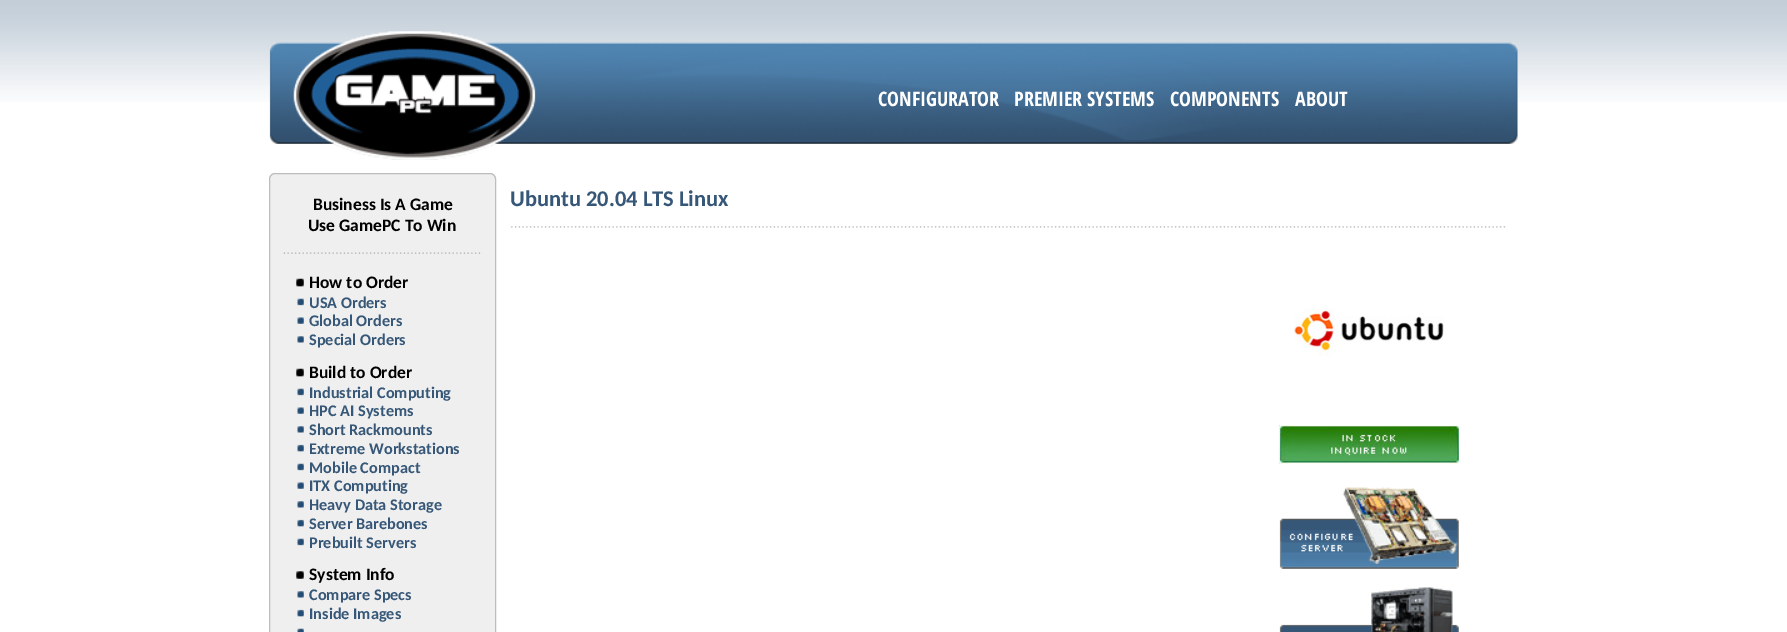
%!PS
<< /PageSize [1787 632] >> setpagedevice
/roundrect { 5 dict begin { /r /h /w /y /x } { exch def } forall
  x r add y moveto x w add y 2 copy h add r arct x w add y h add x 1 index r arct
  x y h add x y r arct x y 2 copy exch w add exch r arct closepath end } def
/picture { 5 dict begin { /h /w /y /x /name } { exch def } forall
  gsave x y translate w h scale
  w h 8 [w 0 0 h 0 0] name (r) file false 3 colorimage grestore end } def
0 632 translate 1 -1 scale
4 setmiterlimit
1 setgray
0 0 1787 632 rectfill
(img1.rgb) 0 0 1787 102 picture
(img2.rgb) 269 31 1249 129 picture
/OpenSansCondensed-Bold [20 0 0 -20 0 0] selectfont
878 106 moveto (CONFIGURATOR) show
1014 106 moveto (PREMIER SYSTEMS) show
1170 106 moveto (COMPONENTS) show
1295 106 moveto (ABOUT) show
0.937 setgray
269.5 173.5 226 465 5.5 roundrect gsave fill grestore
0.741 setgray
stroke
/Carlito-Bold [17.5 0 0 -17.5 0 0] selectfont
0 setgray
313 210 moveto (Business Is A Game) show
308 231 moveto (Use GamePC To Win) show
(img3.rgb) 283 252 198 2 picture
(img4.rgb) 296 278 8 9 picture
309 288 moveto (How to Order) show
(img5.rgb) 297 298 7 8 picture
/Carlito-Bold [16.25 0 0 -16.25 0 0] selectfont
0.212 0.341 0.467 setrgbcolor
309 308 moveto (USA Orders) show
(img6.rgb) 297 317 7 7 picture
309 326 moveto (Global Orders) show
(img7.rgb) 297 336 7 7 picture
309 345 moveto (Special Orders) show
(img4.rgb) 296 368 8 9 picture
/Carlito-Bold [17.5 0 0 -17.5 0 0] selectfont
0 setgray
309 378 moveto (Build to Order) show
(img5.rgb) 297 388 7 8 picture
/Carlito-Bold [16.25 0 0 -16.25 0 0] selectfont
0.212 0.341 0.467 setrgbcolor
309 398 moveto (Industrial Computing) show
(img6.rgb) 297 407 7 7 picture
309 416 moveto (HPC AI Systems) show
(img7.rgb) 297 426 7 7 picture
309 435 moveto (Short Rackmounts) show
(img8.rgb) 297 444 7 8 picture
309 454 moveto (Extreme Workstations) show
(img5.rgb) 297 463 7 8 picture
309 473 moveto (Mobile Compact) show
(img6.rgb) 297 482 7 7 picture
309 491 moveto (ITX Computing) show
(img7.rgb) 297 501 7 7 picture
309 510 moveto (Heavy Data Storage) show
(img8.rgb) 297 519 7 8 picture
309 529 moveto (Server Barebones) show
(img5.rgb) 297 538 7 8 picture
309 548 moveto (Prebuilt Servers) show
(img9.rgb) 296 571 8 8 picture
/Carlito-Bold [17.5 0 0 -17.5 0 0] selectfont
0 setgray
309 580 moveto (System Info) show
(img7.rgb) 297 591 7 7 picture
/Carlito-Bold [16.25 0 0 -16.25 0 0] selectfont
0.212 0.341 0.467 setrgbcolor
309 600 moveto (Compare Specs) show
(img8.rgb) 297 609 7 8 picture
309 619 moveto (Inside Images) show
(img10.rgb) 297 628 7 4 picture
/Carlito-Bold [22.5 0 0 -22.5 0 0] selectfont
510 206 moveto (Ubuntu 20.04 LTS Linux) show
(img11.rgb) 510 226 996 2 picture
(img12.rgb) 1294 308 150 48 picture
(img13.rgb) 1278 425 181 39 picture
(img14.rgb) 1279 487 180 82 picture
(img15.rgb) 1279 587 180 45 picture
showpage
